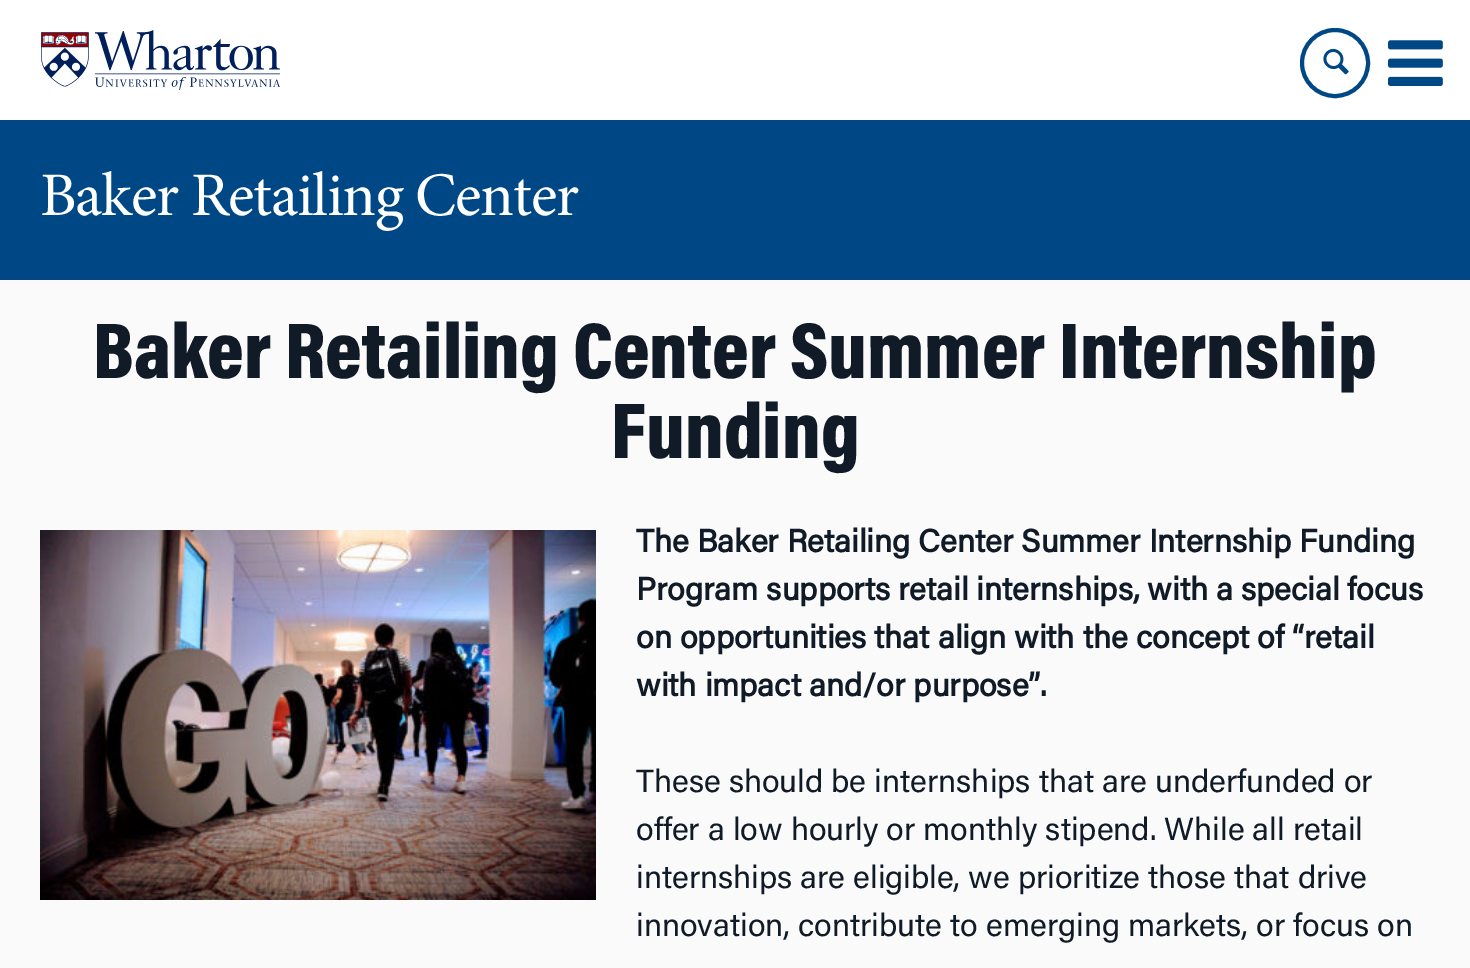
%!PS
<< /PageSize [1470 968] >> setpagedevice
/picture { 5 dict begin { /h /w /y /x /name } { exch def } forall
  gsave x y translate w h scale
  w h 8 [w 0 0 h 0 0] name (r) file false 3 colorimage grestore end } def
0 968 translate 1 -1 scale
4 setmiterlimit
0.98 setgray
0 0 1470 968 rectfill
1 setgray
0 0 1470 120 rectfill
(img1.rgb) 41 30 239 60 picture
0 0.278 0.522 setrgbcolor
4 setlinewidth
newpath 1335 63 33 0 360 arc closepath stroke
(img2.rgb) 1323 48 26 27 picture
(img3.rgb) 1388 40 55 46 picture
0 120 1470 160 rectfill
/minion-Regular [62 0 0 -62 0 0] selectfont
1 setgray
40 215 moveto -1.2 0 (Baker Retailing Center) ashow
/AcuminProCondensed-Black [80 0 0 -80 0 0] selectfont
0.067 0.106 0.153 setrgbcolor
93 378 moveto (Baker Retailing Center Summer Internship) show
611 458 moveto (Funding) show
(img4.rgb) 40 530 556 370 picture
/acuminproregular-Bold [32 0 0 -32 0 0] selectfont
636 552 moveto (The Baker Retailing Center Summer Internship Funding) show
636 600 moveto (Program supports retail internships, with a special focus) show
636 648 moveto (on opportunities that align with the concept of “retail) show
636 696 moveto (with impact and/or purpose”.) show
/acuminproregular-Regular [32 0 0 -32 0 0] selectfont
636 792 moveto (These should be internships that are underfunded or) show
636 840 moveto (offer a low hourly or monthly stipend. While all retail) show
636 888 moveto (internships are eligible, we prioritize those that drive) show
636 936 moveto (innovation, contribute to emerging markets, or focus on) show
showpage
